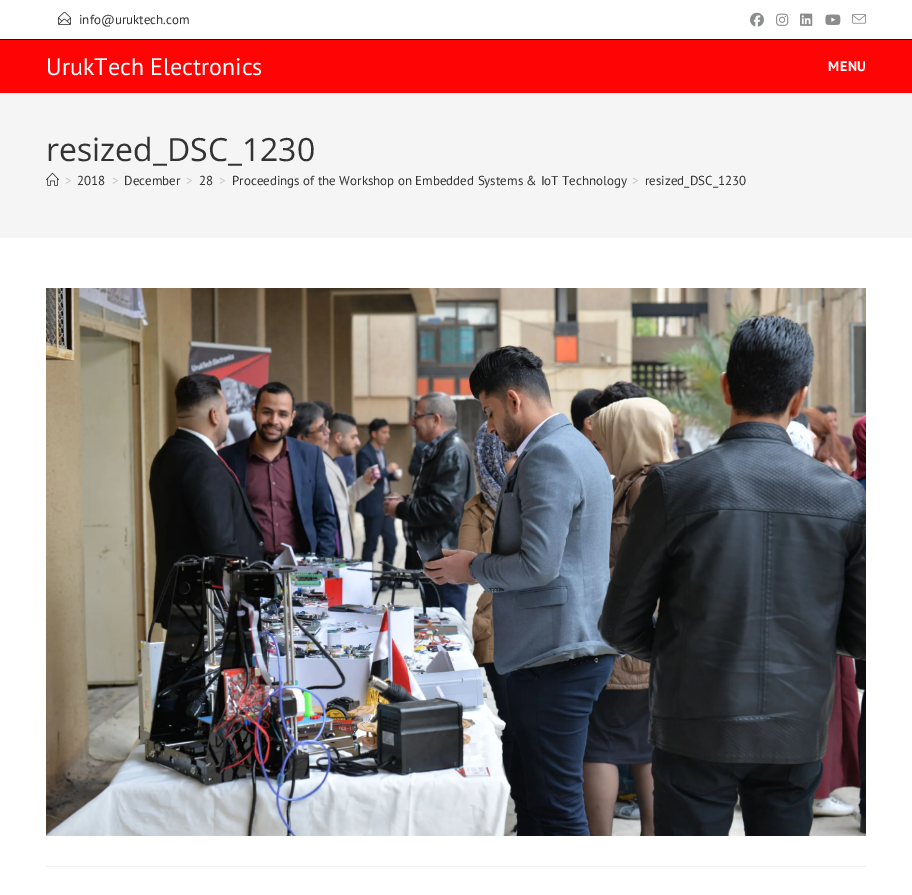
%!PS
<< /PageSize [912 895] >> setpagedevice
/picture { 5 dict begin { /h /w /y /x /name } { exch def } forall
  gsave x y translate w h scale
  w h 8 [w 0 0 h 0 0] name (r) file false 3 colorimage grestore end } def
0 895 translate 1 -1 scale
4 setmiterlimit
1 setgray
0 0 912 895 rectfill
0.086 0.094 0.098 setrgbcolor
0 39 912 1 rectfill
(img1.rgb) 58 11 13 14 picture
/PTSans-Regular [13 0 0 -13 0 0] selectfont
0.2 setgray
79 24 moveto (info@uruktech.com) show
(img2.rgb) 750 12 14 15 picture
(img3.rgb) 776 13 13 13 picture
(img4.rgb) 800 13 13 13 picture
(img5.rgb) 825 14 16 11 picture
(img6.rgb) 852 14 14 10 picture
1 0.016 0.016 setrgbcolor
0 40 912 53 rectfill
/PTSans-Regular [24 0 0 -24 0 0] selectfont
1 setgray
46 75 moveto (UrukTech Electronics) show
/PTSans-Bold [14 0 0 -14 0 0] selectfont
828 71 moveto 0.5 0 (MENU) ashow
0.961 setgray
0 93 912 145 rectfill
/OpenSans-Regular [32 0 0 -32 0 0] selectfont
0.2 setgray
46 161 moveto (resized_DSC_1230) show
(img7.rgb) 46 172 13 14 picture
/PTSans-Regular [13 0 0 -13 0 0] selectfont
0.776 setgray
65 185 moveto (>) show
0.2 setgray
77 185 moveto (2018) show
0.776 setgray
112 185 moveto (>) show
0.2 setgray
124 185 moveto (December) show
0.776 setgray
186 185 moveto (>) show
0.2 setgray
199 185 moveto (28) show
0.776 setgray
219 185 moveto (>) show
0.2 setgray
232 185 moveto (Proceedings of the Workshop on Embedded Systems & IoT Technology) show
0.776 setgray
632 185 moveto (>) show
0.2 setgray
645 185 moveto (resized_DSC_1230) show
(img8.rgb) 46 288 820 548 picture
0.945 setgray
46 866 820 1 rectfill
showpage
